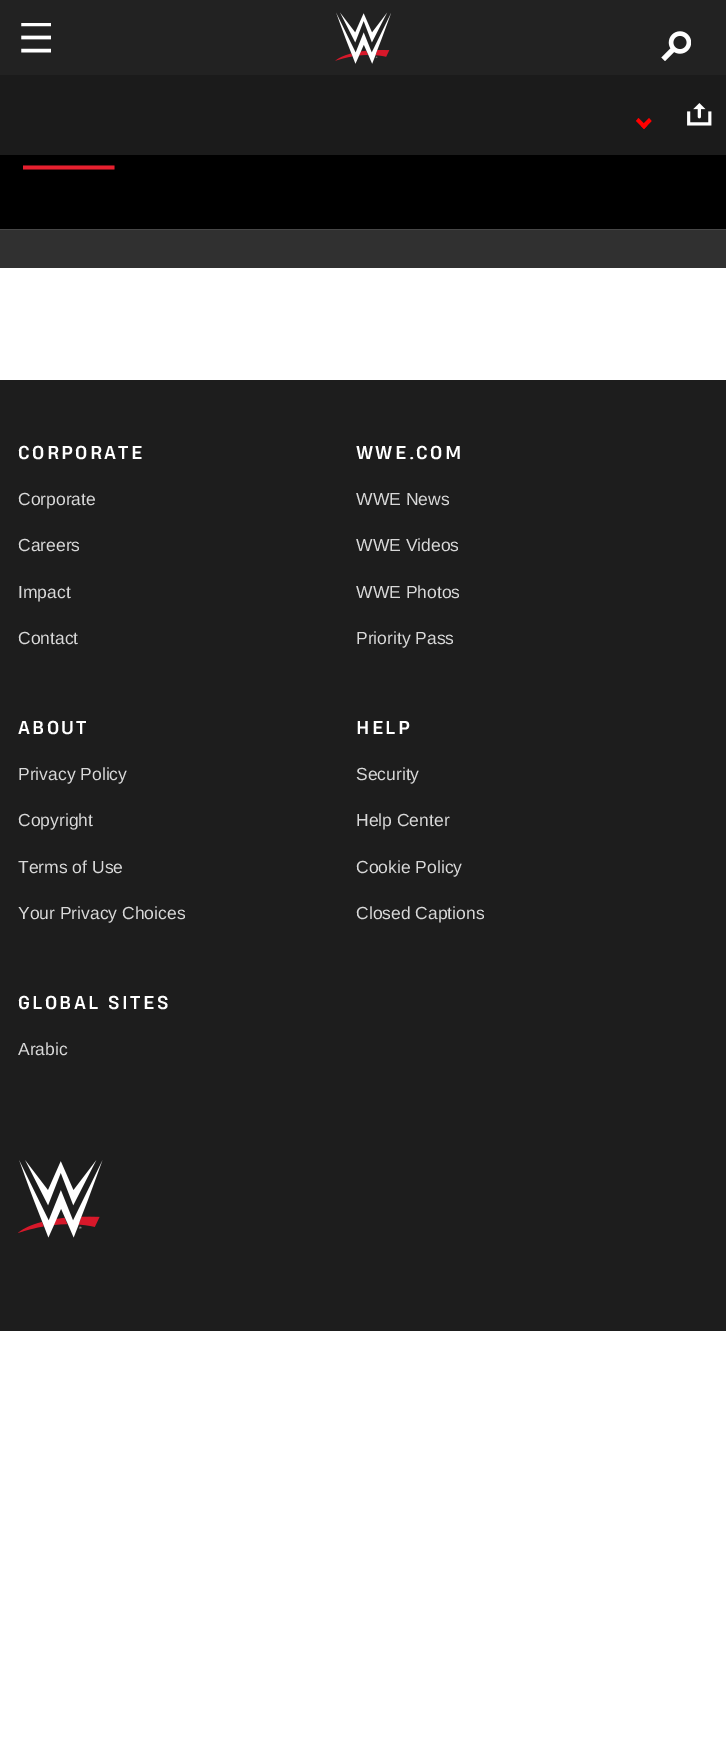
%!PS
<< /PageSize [726 1738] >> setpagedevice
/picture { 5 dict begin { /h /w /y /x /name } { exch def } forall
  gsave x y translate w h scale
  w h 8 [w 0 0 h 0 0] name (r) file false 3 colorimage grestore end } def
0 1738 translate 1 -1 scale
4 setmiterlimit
1 setgray
0 0 726 1738 rectfill
0.133 setgray
0 0 726 75 rectfill
(img1.rgb) 21 23 30 30 picture
(img2.rgb) 335 12 56 52 picture
(img3.rgb) 661 31 30 30 picture
0.188 setgray
0 230 726 38 rectfill
0.106 setgray
0 75 726 80 rectfill
1 0 0 setrgbcolor
newpath 649 118 moveto 651.5 121 lineto 644 129 lineto 641 126 lineto closepath fill
newpath 638.5 118 moveto 646.5 126 lineto 644 129 lineto 636 121 lineto closepath fill
(img4.rgb) 687 103 25 23 picture
0 setgray
0 155 726 74 rectfill
0.278 setgray
0 229 726 1 rectfill
gsave
23 164 112 6 rectclip
0.906 0.125 0.184 setrgbcolor
3.8 setlinewidth
newpath 2 167.5 moveto 114.5 167.5 lineto stroke
grestore
0.114 setgray
0 380 726 951 rectfill
/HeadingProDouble-Bold [17.5 0 0 -17.5 0 0] selectfont
1 setgray
18 459 moveto 2.25 0 (CORPORATE) ashow
/LiberationSans-Regular [17.5 0 0 -17.5 0 0] selectfont
0.847 setgray
18 505 moveto (Corporate) show
18 551 moveto (Careers) show
18 598 moveto (Impact) show
18 644 moveto (Contact) show
/HeadingProDouble-Bold [17.5 0 0 -17.5 0 0] selectfont
1 setgray
356 459 moveto 2.25 0 (WWE.COM) ashow
/LiberationSans-Regular [17.5 0 0 -17.5 0 0] selectfont
0.847 setgray
356 505 moveto (WWE News) show
356 551 moveto (WWE Videos) show
356 598 moveto (WWE Photos) show
356 644 moveto (Priority Pass) show
/HeadingProDouble-Bold [17.5 0 0 -17.5 0 0] selectfont
1 setgray
18 734 moveto 2.25 0 (ABOUT) ashow
/LiberationSans-Regular [17.5 0 0 -17.5 0 0] selectfont
0.847 setgray
18 780 moveto (Privacy Policy) show
18 826 moveto (Copyright) show
18 873 moveto (Terms of Use) show
18 919 moveto (Your Privacy Choices) show
/HeadingProDouble-Bold [17.5 0 0 -17.5 0 0] selectfont
1 setgray
356 734 moveto 2.25 0 (HELP) ashow
/LiberationSans-Regular [17.5 0 0 -17.5 0 0] selectfont
0.847 setgray
356 780 moveto (Security) show
356 826 moveto (Help Center) show
356 873 moveto (Cookie Policy) show
356 919 moveto (Closed Captions) show
/HeadingProDouble-Bold [17.5 0 0 -17.5 0 0] selectfont
1 setgray
18 1009 moveto 2.25 0 (GLOBAL SITES) ashow
/LiberationSans-Regular [17.5 0 0 -17.5 0 0] selectfont
0.847 setgray
18 1055 moveto (Arabic) show
(img5.rgb) 18 1160 85 78 picture
showpage
